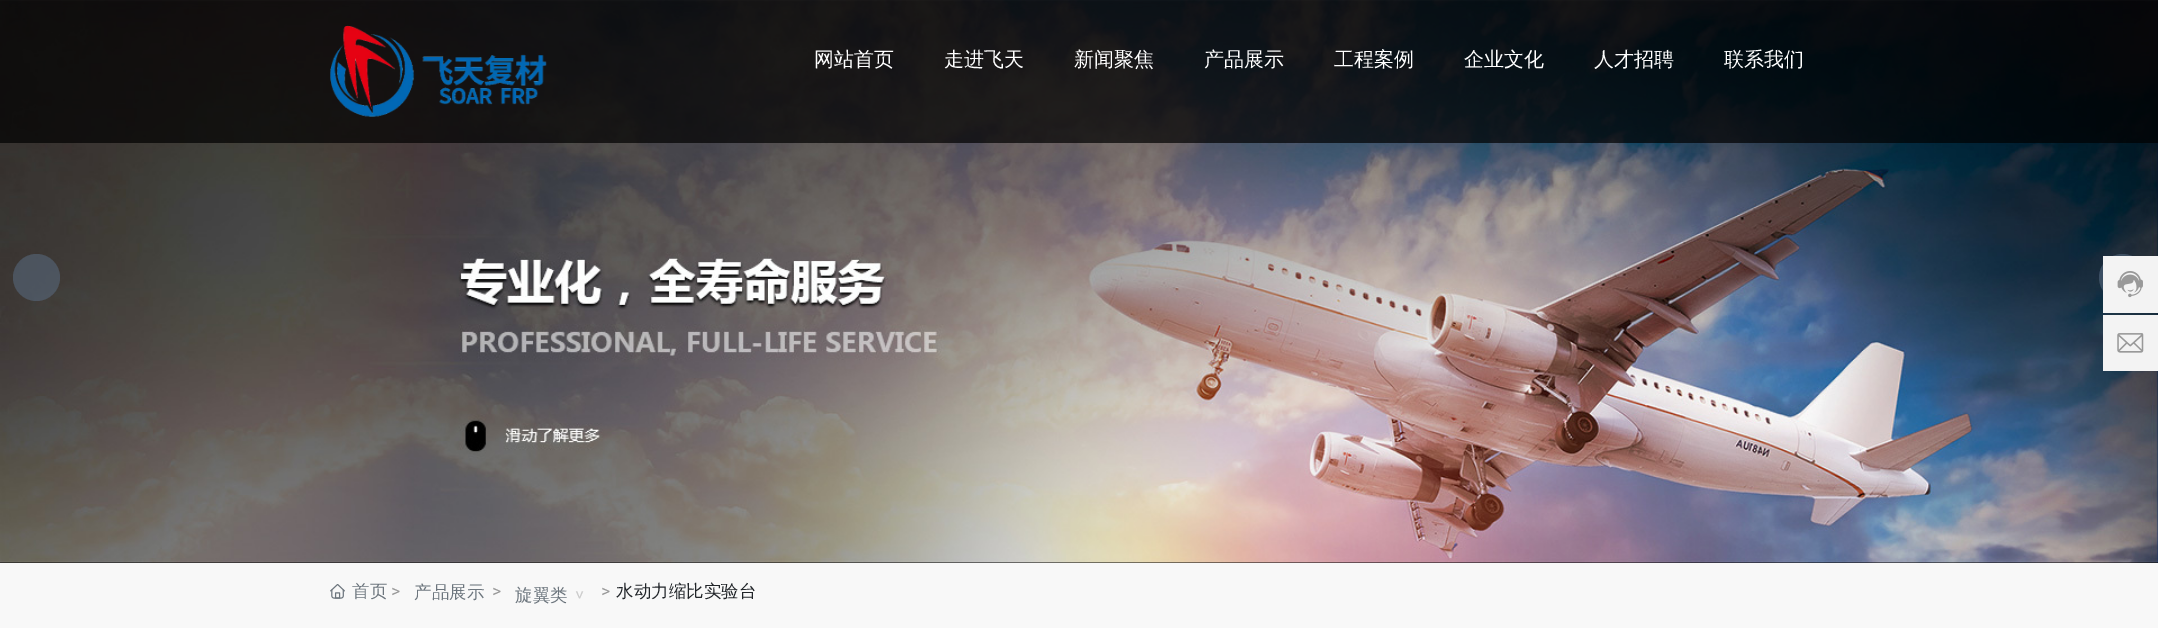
%!PS
<< /PageSize [2158 630] /PageUsesTransparency true >> setpagedevice
/alpha { dup .setfillconstantalpha .setstrokeconstantalpha } def
/picture { 5 dict begin { /h /w /y /x /name } { exch def } forall
  gsave x y translate w h scale
  w h 8 [w 0 0 h 0 0] name (r) file false 3 colorimage grestore end } def
0 .pushpdf14devicefilter
0 630 translate 1 -1 scale
4 setmiterlimit
1 setgray
0 0 2158 630 rectfill
0 setgray
0 562 2158 1 rectfill
(img1.rgb) 0 0 2158 563 picture
0.5 alpha
0.357 0.439 0.533 setrgbcolor
newpath 36.5 277.5 23.5 0 360 arc closepath fill
newpath 2122.5 277.5 23.5 0 360 arc closepath fill
0.7 alpha
0 setgray
0 0 2158 143 rectfill
1 alpha
(img2.rgb) 330 25 217 92 picture
/WenQuanYiZenHei-Medium [20 0 0 -20 0 0] selectfont
1 setgray
814 66 moveto (网站首页) show
944 66 moveto (走进飞天) show
1074 66 moveto (新闻聚焦) show
1204 66 moveto (产品展示) show
1334 66 moveto (工程案例) show
1464 66 moveto (企业文化) show
1594 66 moveto (人才招聘) show
1724 66 moveto (联系我们) show
0.973 setgray
0 563 2158 65 rectfill
(img3.rgb) 330 584 15 15 picture
/WenQuanYiZenHei-Medium [17.5 0 0 -17.5 0 0] selectfont
0.424 0.459 0.49 setrgbcolor
352 597 moveto (首页) show
/Roboto-Regular [17.5 0 0 -17.5 0 0] selectfont
0.6 setgray
391 597 moveto (>) show
/WenQuanYiZenHei-Medium [17.5 0 0 -17.5 0 0] selectfont
0.424 0.459 0.49 setrgbcolor
414 598 moveto (产品展示) show
/Roboto-Regular [17.5 0 0 -17.5 0 0] selectfont
0.6 setgray
492 597 moveto (>) show
/WenQuanYiZenHei-Medium [17.5 0 0 -17.5 0 0] selectfont
0.424 0.459 0.49 setrgbcolor
515 601 moveto (旋翼类) show
/Roboto-Regular [17.5 0 0 -17.5 0 0] selectfont
0.8 setgray
gsave 574 590 translate 90 rotate 0 0 moveto (>) show grestore
0.6 setgray
601 597 moveto (>) show
/WenQuanYiZenHei-Medium [17.5 0 0 -17.5 0 0] selectfont
0.129 0.145 0.161 setrgbcolor
616 597 moveto (水动力缩比实验台) show
0.953 setgray
2103 256 55 57 rectfill
(img4.rgb) 2117 271 26 27 picture
2103 315 55 56 rectfill
(img5.rgb) 2117 333 27 20 picture
.poppdf14devicefilter showpage
